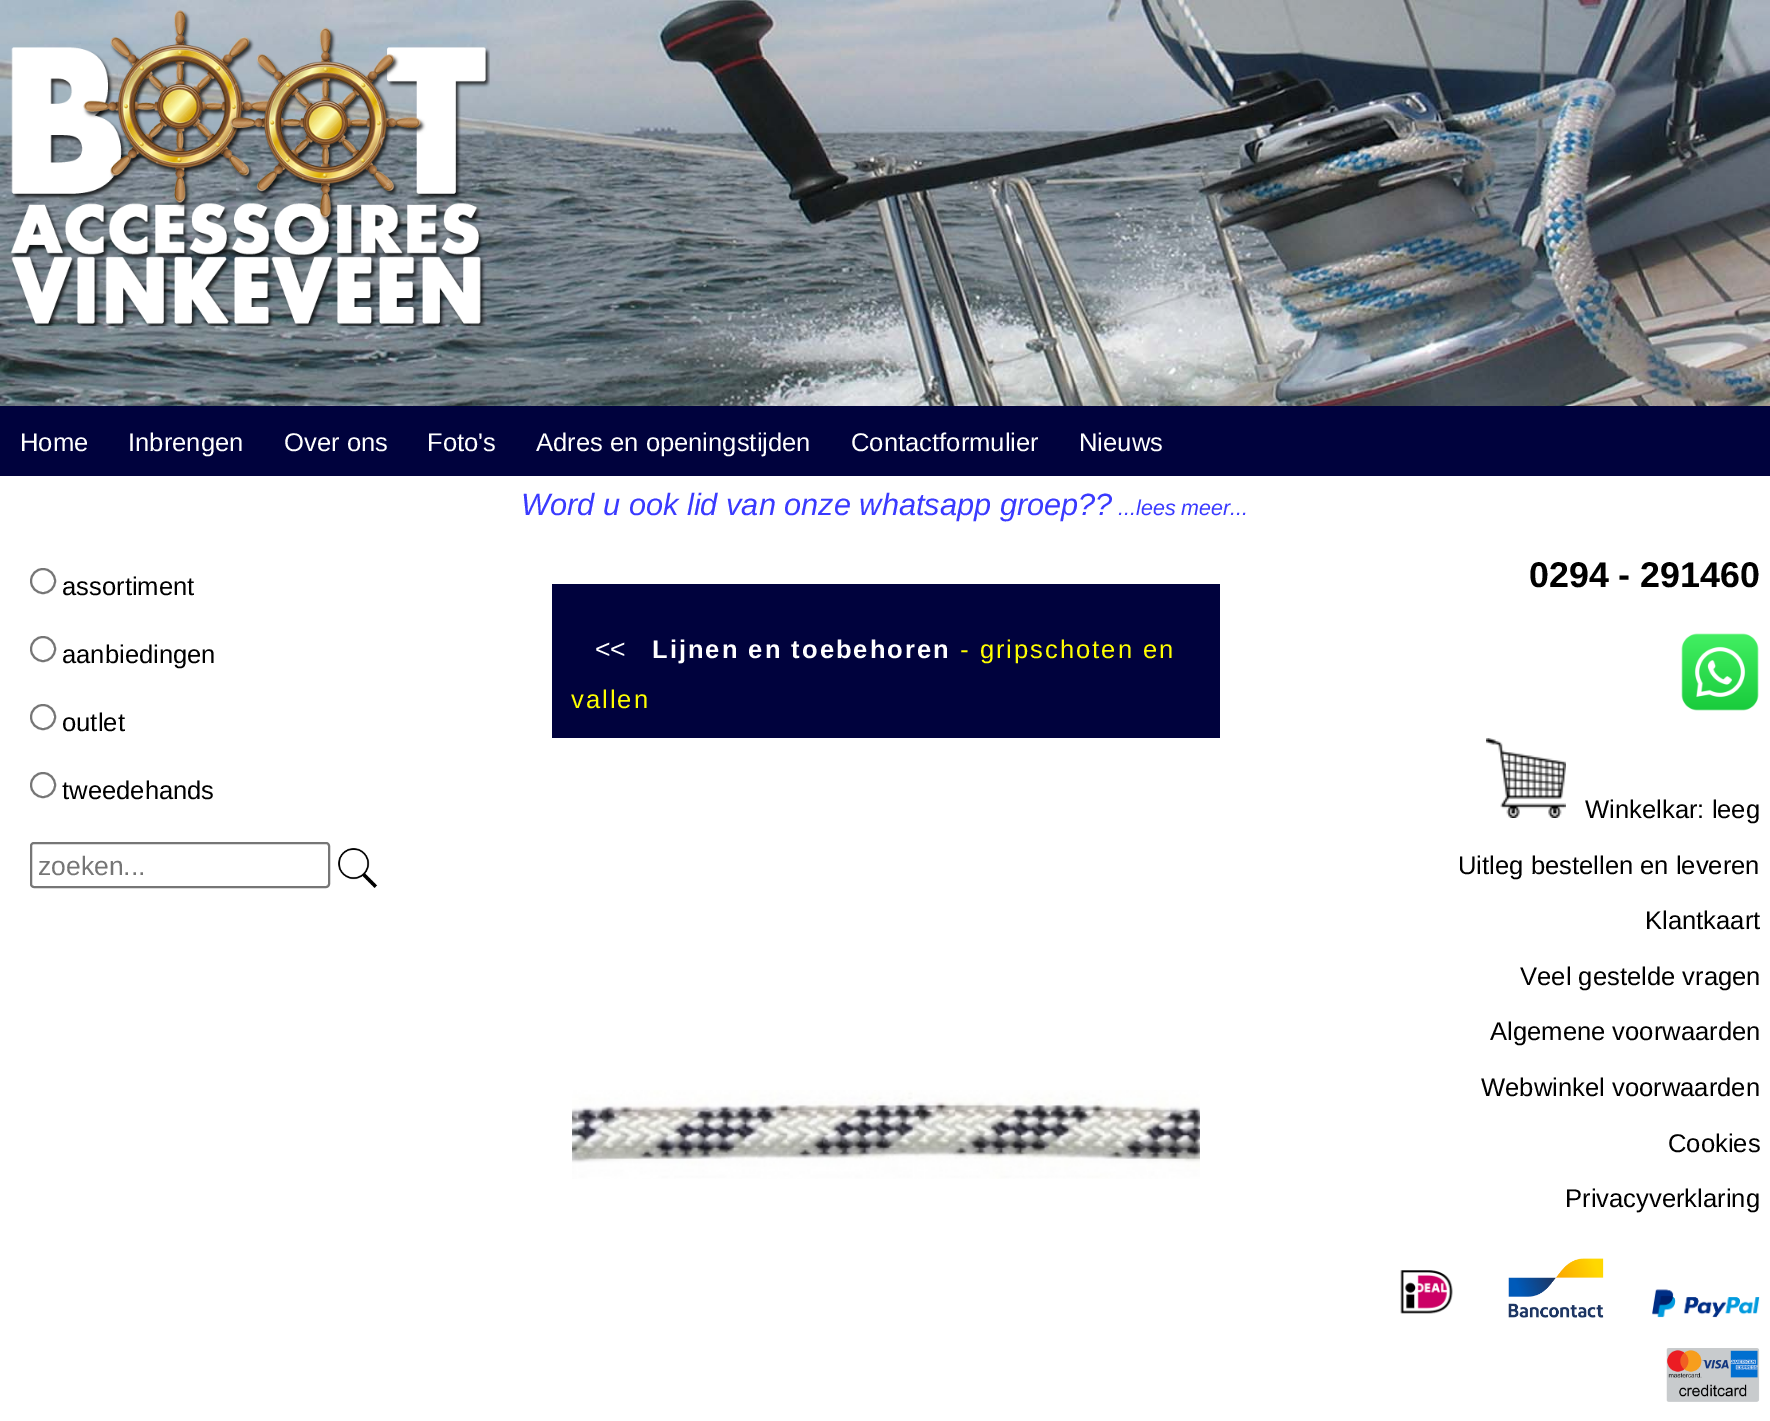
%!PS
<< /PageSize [1770 1421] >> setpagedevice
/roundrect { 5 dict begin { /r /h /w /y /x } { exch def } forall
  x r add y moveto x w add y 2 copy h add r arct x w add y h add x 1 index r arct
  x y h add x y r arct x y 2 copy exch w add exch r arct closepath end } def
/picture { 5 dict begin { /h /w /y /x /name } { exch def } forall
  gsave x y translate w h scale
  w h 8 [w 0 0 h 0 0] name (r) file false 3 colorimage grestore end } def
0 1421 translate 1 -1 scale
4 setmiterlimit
1 setgray
0 0 1770 1421 rectfill
(img1.rgb) 0 0 1770 406 picture
(img2.rgb) 10 10 480 316 picture
0 0.008 0.239 setrgbcolor
0 406 1770 70 rectfill
/LiberationSans-Regular [25.6 0 0 -25.6 0 0] selectfont
1 setgray
20 451 moveto (Home) show
128 451 moveto (Inbrengen) show
284 451 moveto (Over ons) show
427 451 moveto (Foto's) show
536 451 moveto (Adres en openingstijden) show
851 451 moveto (Contactformulier) show
1079 451 moveto (Nieuws) show
/LiberationSans-Italic [30.75 0 0 -30.75 0 0] selectfont
0.227 0.227 1 setrgbcolor
521 515 moveto (Word u ook lid van onze whatsapp groep??) show
/LiberationSans-Italic [21.5 0 0 -21.5 0 0] selectfont
1118 515 moveto (...lees meer...) show
0.463 setgray
2 setlinewidth
newpath 43 581 12 0 360 arc closepath stroke
/LiberationSans-Regular [25.6 0 0 -25.6 0 0] selectfont
0 setgray
62 595 moveto (assortiment) show
0.463 setgray
newpath 43 649 12 0 360 arc closepath stroke
0 setgray
62 663 moveto (aanbiedingen) show
0.463 setgray
newpath 43 717 12 0 360 arc closepath stroke
0 setgray
62 731 moveto (outlet) show
0.463 setgray
newpath 43 785 12 0 360 arc closepath stroke
0 setgray
62 799 moveto (tweedehands) show
0.463 setgray
31 843 298 44 3 roundrect stroke
/LiberationSans-Regular [26.5 0 0 -26.5 0 0] selectfont
0.459 setgray
38 875 moveto (zoeken...) show
(img3.rgb) 338 848 40 40 picture
0 0.008 0.239 setrgbcolor
552 584 668 154 rectfill
1 setgray
595 658 moveto (<<) show
/LiberationSans-Bold [25.6 0 0 -25.6 0 0] selectfont
652 658 moveto 2 0 (Lijnen en toebehoren) ashow
/LiberationSans-Regular [25.6 0 0 -25.6 0 0] selectfont
1 1 0 setrgbcolor
960 658 moveto 2 0 (- gripschoten en) ashow
571 708 moveto 2 0 (vallen) ashow
(img4.rgb) 572 1090 628 89 picture
/LiberationSans-Bold [35.75 0 0 -35.75 0 0] selectfont
0 setgray
1529 587 moveto (0294 - 291460) show
(img5.rgb) 1681 633 78 78 picture
(img6.rgb) 1486 738 80 80 picture
/LiberationSans-Regular [25.6 0 0 -25.6 0 0] selectfont
1585 818 moveto (Winkelkar: leeg) show
1458 874 moveto (Uitleg bestellen en leveren) show
1645 929 moveto (Klantkaart) show
1520 985 moveto (Veel gestelde vragen) show
1490 1040 moveto (Algemene voorwaarden) show
1481 1096 moveto (Webwinkel voorwaarden) show
1668 1152 moveto (Cookies) show
1565 1207 moveto (Privacyverklaring) show
(img7.rgb) 1400 1270 53 44 picture
(img8.rgb) 1508 1258 96 60 picture
(img9.rgb) 1652 1289 108 29 picture
(img10.rgb) 1666 1348 94 54 picture
showpage
